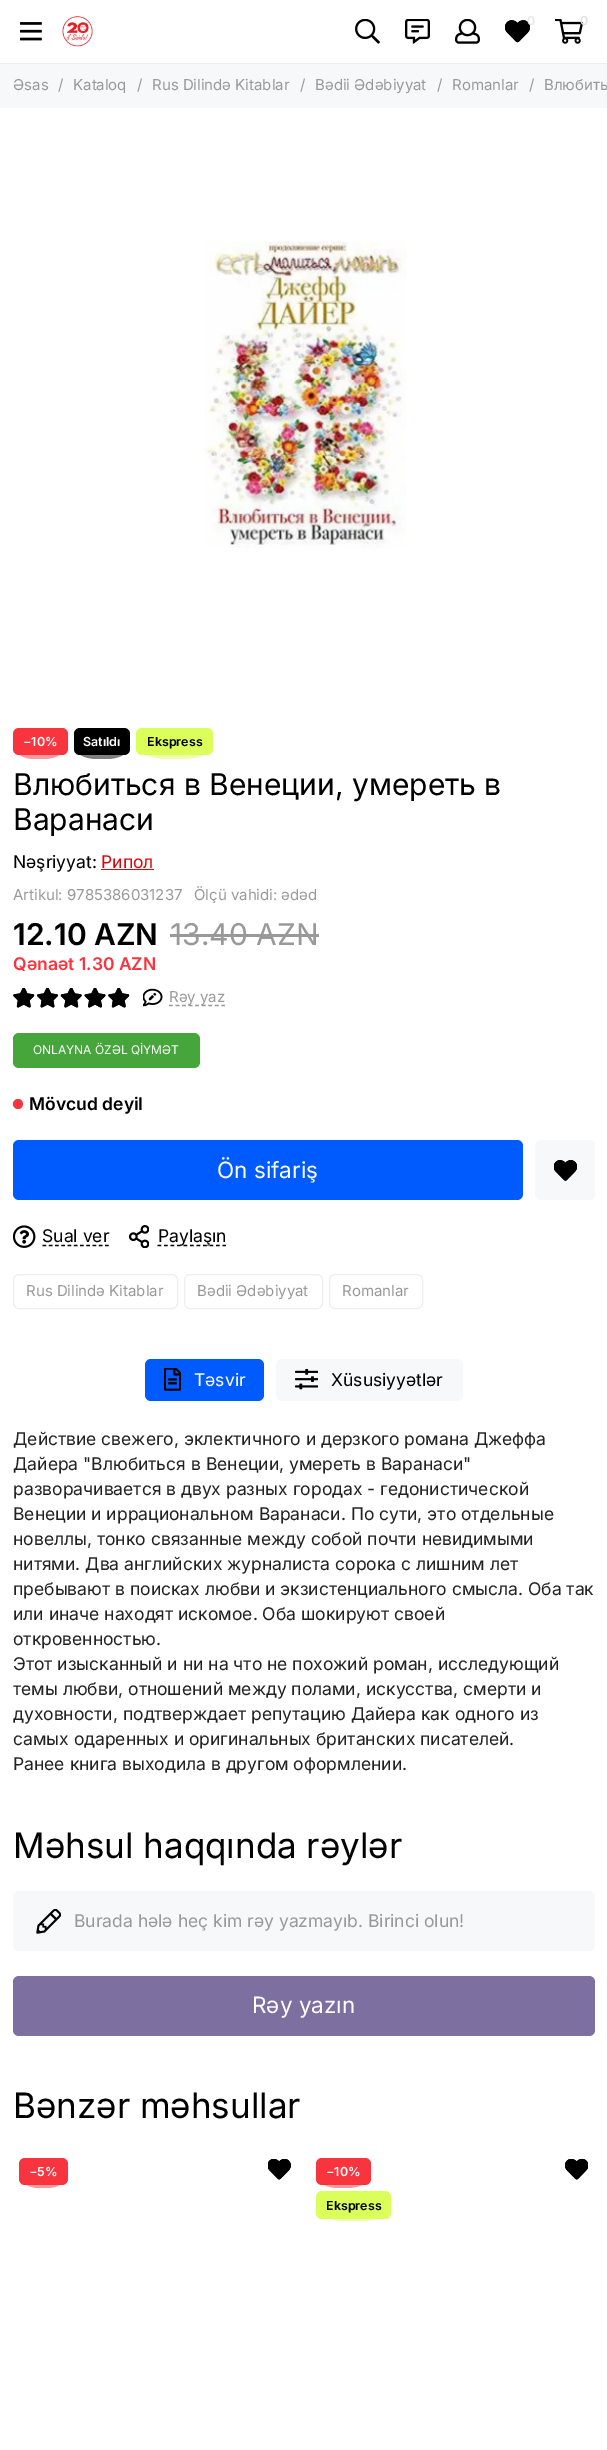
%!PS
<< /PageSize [607 2450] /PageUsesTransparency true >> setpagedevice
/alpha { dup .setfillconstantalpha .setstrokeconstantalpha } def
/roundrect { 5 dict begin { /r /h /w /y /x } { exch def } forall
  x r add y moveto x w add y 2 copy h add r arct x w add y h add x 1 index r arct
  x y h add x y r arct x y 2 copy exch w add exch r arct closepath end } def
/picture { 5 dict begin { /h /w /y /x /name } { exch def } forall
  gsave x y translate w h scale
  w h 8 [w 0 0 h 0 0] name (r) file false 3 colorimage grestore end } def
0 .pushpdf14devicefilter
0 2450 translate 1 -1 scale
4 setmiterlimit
1 setgray
0 0 607 2450 rectfill
0.933 setgray
newpath 0 62 moveto 0 64 lineto 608 64 lineto 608 1 lineto 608 62 lineto closepath fill
1 setgray
0 62 607 1 rectfill
(img1.rgb) 20 22 22 19 picture
(img2.rgb) 62 16 31 31 picture
(img3.rgb) 355 19 25 25 picture
(img4.rgb) 405 19 25 25 picture
(img5.rgb) 455 19 25 25 picture
(img6.rgb) 505 20 25 23 picture
/Inter-SemiBold [12.5 0 0 -12.5 0 0] selectfont
0.914 setgray
527 25 moveto (0) show
(img7.rgb) 555 19 28 25 picture
0.882 setgray
580 25 moveto (0) show
0.969 0.973 0.98 setrgbcolor
0 64 607 44 rectfill
/Inter-Regular [15 0 0 -15 0 0] selectfont
0.6 setgray
13 90 moveto (Əsas) show
58 90 moveto (/) show
73 90 moveto (Kataloq) show
137 90 moveto (/) show
152 90 moveto (Rus Dilində Kitablar) show
300 90 moveto (/) show
315 90 moveto (Bədii Ədəbiyyat) show
437 90 moveto (/) show
452 90 moveto (Romanlar) show
529 90 moveto (/) show
544 90 moveto (Влюбить) show
(img8.rgb) 204 241 202 307 picture
0.973 0.208 0.243 setrgbcolor
13 728 55 27 6 roundrect fill
0.5 alpha
newpath 34 734 moveto 44 734 lineto 55 734 64 738 64 744 curveto 64 749 lineto 64 754 55 759 44 759 curveto 34 759 lineto 24 759 15 754 15 749 curveto 15 744 lineto 15 738 24 734 34 734 curveto closepath fill
/Inter-SemiBold [12.5 0 0 -12.5 0 0] selectfont
1 alpha
1 setgray
23 746 moveto (−10%) show
0 setgray
74 728 56 27 6 roundrect fill
0.5 alpha
newpath 97 734 moveto 107 734 lineto 118 734 128 738 128 744 curveto 128 749 lineto 128 754 118 759 107 759 curveto 97 759 lineto 85 759 76 754 76 749 curveto 76 744 lineto 76 738 85 734 97 734 curveto closepath fill
1 alpha
1 setgray
83 746 moveto (Satıldı) show
0.863 0.996 0.357 setrgbcolor
136 728 77 27 6 roundrect fill
0.5 alpha
newpath 168 734 moveto 182 734 lineto 197 734 209 738 209 744 curveto 209 749 lineto 209 754 197 759 182 759 curveto 168 759 lineto 153 759 141 754 141 749 curveto 141 744 lineto 141 738 153 734 168 734 curveto closepath fill
1 alpha
0 setgray
147 746 moveto (Ekspress) show
/Inter-Regular [30 0 0 -30 0 0] selectfont
13 795 moveto (Влюбиться в Венеции, умереть в) show
13 830 moveto (Варанаси) show
/Inter-Regular [17.5 0 0 -17.5 0 0] selectfont
13 868 moveto (Nəşriyyat:) show
0.863 0.027 0.031 setrgbcolor
101 868 moveto (Рипол) show
101 869 53 1 rectfill
/Inter-Regular [15 0 0 -15 0 0] selectfont
0.6 setgray
13 900 moveto (Artikul: 9785386031237) show
194 900 moveto (Ölçü vahidi: ədəd) show
/Inter-SemiBold [30 0 0 -30 0 0] selectfont
0 setgray
13 945 moveto (12.10 AZN) show
/Inter-Regular [30 0 0 -30 0 0] selectfont
0.6 setgray
170 945 moveto (13.40 AZN) show
170 934 149 3 rectfill
/Inter-SemiBold [17.5 0 0 -17.5 0 0] selectfont
0.973 0.208 0.243 setrgbcolor
13 970 moveto (Qənaət 1.30 AZN) show
(img9.rgb) 13 988 22 20 picture
(img10.rgb) 37 988 21 20 picture
(img11.rgb) 60 988 22 20 picture
(img12.rgb) 84 988 22 20 picture
(img9.rgb) 108 988 22 20 picture
(img13.rgb) 143 988 20 19 picture
0.6 setgray
1.2 setlinewidth
[3.75 2.81] 0 setdash
newpath 169 1005.5 moveto 225 1005.5 lineto stroke
/Inter-Regular [15 0 0 -15 0 0] selectfont
169 1002 moveto (Rəy yaz) show
0.275 0.647 0.231 setrgbcolor
13 1033 187 35 6 roundrect fill
/Inter-Regular [12 0 0 -12 0 0] selectfont
1 setgray
33 1054 moveto (ONLAYNA ÖZƏL QİYMƏT) show
0.973 0.208 0.243 setrgbcolor
newpath 18 1104 5 0 360 arc closepath fill
/Inter-SemiBold [17.5 0 0 -17.5 0 0] selectfont
0 setgray
29 1110 moveto (Mövcud deyil) show
0 0.357 1 setrgbcolor
13 1140 510 60 6 roundrect fill
/Inter-Regular [22.5 0 0 -22.5 0 0] selectfont
1 setgray
217 1178 moveto (Ön sifariş) show
0.969 0.973 0.98 setrgbcolor
535 1140 60 60 6 roundrect fill
(img14.rgb) 554 1160 23 21 picture
(img15.rgb) 13 1225 23 23 picture
0 setgray
[3.75 2.5] 0 setdash
newpath 42.5 1245.5 moveto 109 1245.5 lineto stroke
/Inter-Regular [17.5 0 0 -17.5 0 0] selectfont
42 1242 moveto (Sual ver) show
(img16.rgb) 129 1225 20 23 picture
[3.75 2.75] 0 setdash
newpath 157.5 1245.5 moveto 226 1245.5 lineto stroke
158 1242 moveto (Paylaşın) show
0.933 setgray
1 setlinewidth
[] 0 setdash
13.5 1274.5 164 34 5.5 roundrect stroke
/Inter-Regular [15 0 0 -15 0 0] selectfont
0.6 setgray
26 1296 moveto (Rus Dilində Kitablar) show
0.933 setgray
184.5 1274.5 138 34 5.5 roundrect stroke
0.6 setgray
197 1296 moveto (Bədii Ədəbiyyat) show
0.933 setgray
329.5 1274.5 93 34 5.5 roundrect stroke
0.6 setgray
342 1296 moveto (Romanlar) show
0 0.357 1 setrgbcolor
145 1359 119 42 6 roundrect fill
(img17.rgb) 164 1368 17 23 picture
/Inter-Regular [17.5 0 0 -17.5 0 0] selectfont
1 setgray
194 1386 moveto (Təsvir) show
0.969 0.973 0.98 setrgbcolor
276 1359 187 42 6 roundrect fill
(img18.rgb) 295 1368 23 22 picture
0 setgray
331 1386 moveto (Xüsusiyyətlər) show
0.133 setgray
13 1445 moveto (Действие свежего, эклектичного и дерзкого романа Джеффа) show
13 1470 moveto (Дайера "Влюбиться в Венеции, умереть в Варанаси") show
13 1495 moveto (разворачивается в двух разных городах - гедонистической) show
13 1520 moveto (Венеции и иррациональном Варанаси. По сути, это отдельные) show
13 1545 moveto (новеллы, тонко связанные между собой почти невидимыми) show
13 1570 moveto (нитями. Два английских журналиста сорока с лишним лет) show
13 1595 moveto (пребывают в поисках любви и экзистенциального смысла. Оба так) show
13 1620 moveto (или иначе находят искомое. Оба шокируют своей) show
13 1645 moveto (откровенностью.) show
13 1670 moveto (Этот изысканный и ни на что не похожий роман, исследующий) show
13 1695 moveto (темы любви, отношений между полами, искусства, смерти и) show
13 1720 moveto (духовности, подтверждает репутацию Дайера как одного из) show
13 1745 moveto (самых одаренных и оригинальных британских писателей.) show
13 1770 moveto (Ранее книга выходила в другом оформлении.) show
/Inter-Regular [35 0 0 -35 0 0] selectfont
0 setgray
13 1858 moveto (Məhsul haqqında rəylər) show
0.969 0.973 0.98 setrgbcolor
13 1891 582 60 6 roundrect fill
(img19.rgb) 36 1909 25 25 picture
/Inter-Regular [17.5 0 0 -17.5 0 0] selectfont
0.6 setgray
74 1927 moveto (Burada hələ heç kim rəy yazmayıb. Birinci olun!) show
0.49 0.435 0.627 setrgbcolor
13 1976 582 60 6 roundrect fill
/Inter-Regular [22.5 0 0 -22.5 0 0] selectfont
1 setgray
252 2013 moveto (Rəy yazın) show
/Inter-Regular [35 0 0 -35 0 0] selectfont
0 setgray
13 2118 moveto (Bənzər məhsullar) show
0.973 0.208 0.243 setrgbcolor
19 2158 49 27 6 roundrect fill
0.5 alpha
newpath 39 2164 moveto 48 2164 lineto 57 2164 65 2168 65 2173 curveto 65 2178 lineto 65 2183 57 2188 48 2188 curveto 39 2188 lineto 29 2188 21 2183 21 2178 curveto 21 2173 lineto 21 2168 29 2164 39 2164 curveto closepath fill
/Inter-SemiBold [12.5 0 0 -12.5 0 0] selectfont
1 alpha
1 setgray
29 2176 moveto (−5%) show
(img20.rgb) 268 2159 23 21 picture
0.973 0.208 0.243 setrgbcolor
316 2158 55 27 6 roundrect fill
0.5 alpha
newpath 338 2164 moveto 348 2164 lineto 359 2164 368 2168 368 2173 curveto 368 2178 lineto 368 2183 359 2188 348 2188 curveto 338 2188 lineto 327 2188 319 2183 319 2178 curveto 319 2173 lineto 319 2168 327 2164 338 2164 curveto closepath fill
1 alpha
1 setgray
326 2176 moveto (−10%) show
0.863 0.996 0.357 setrgbcolor
316 2191 75 28 6 roundrect fill
0.5 alpha
newpath 347 2198 moveto 360 2198 lineto 375 2198 388 2202 388 2207 curveto 388 2212 lineto 388 2217 375 2221 360 2221 curveto 347 2221 lineto 332 2221 320 2217 320 2212 curveto 320 2207 lineto 320 2202 332 2198 347 2198 curveto closepath fill
1 alpha
0 setgray
326 2210 moveto (Ekspress) show
(img21.rgb) 565 2159 23 21 picture
.poppdf14devicefilter showpage
